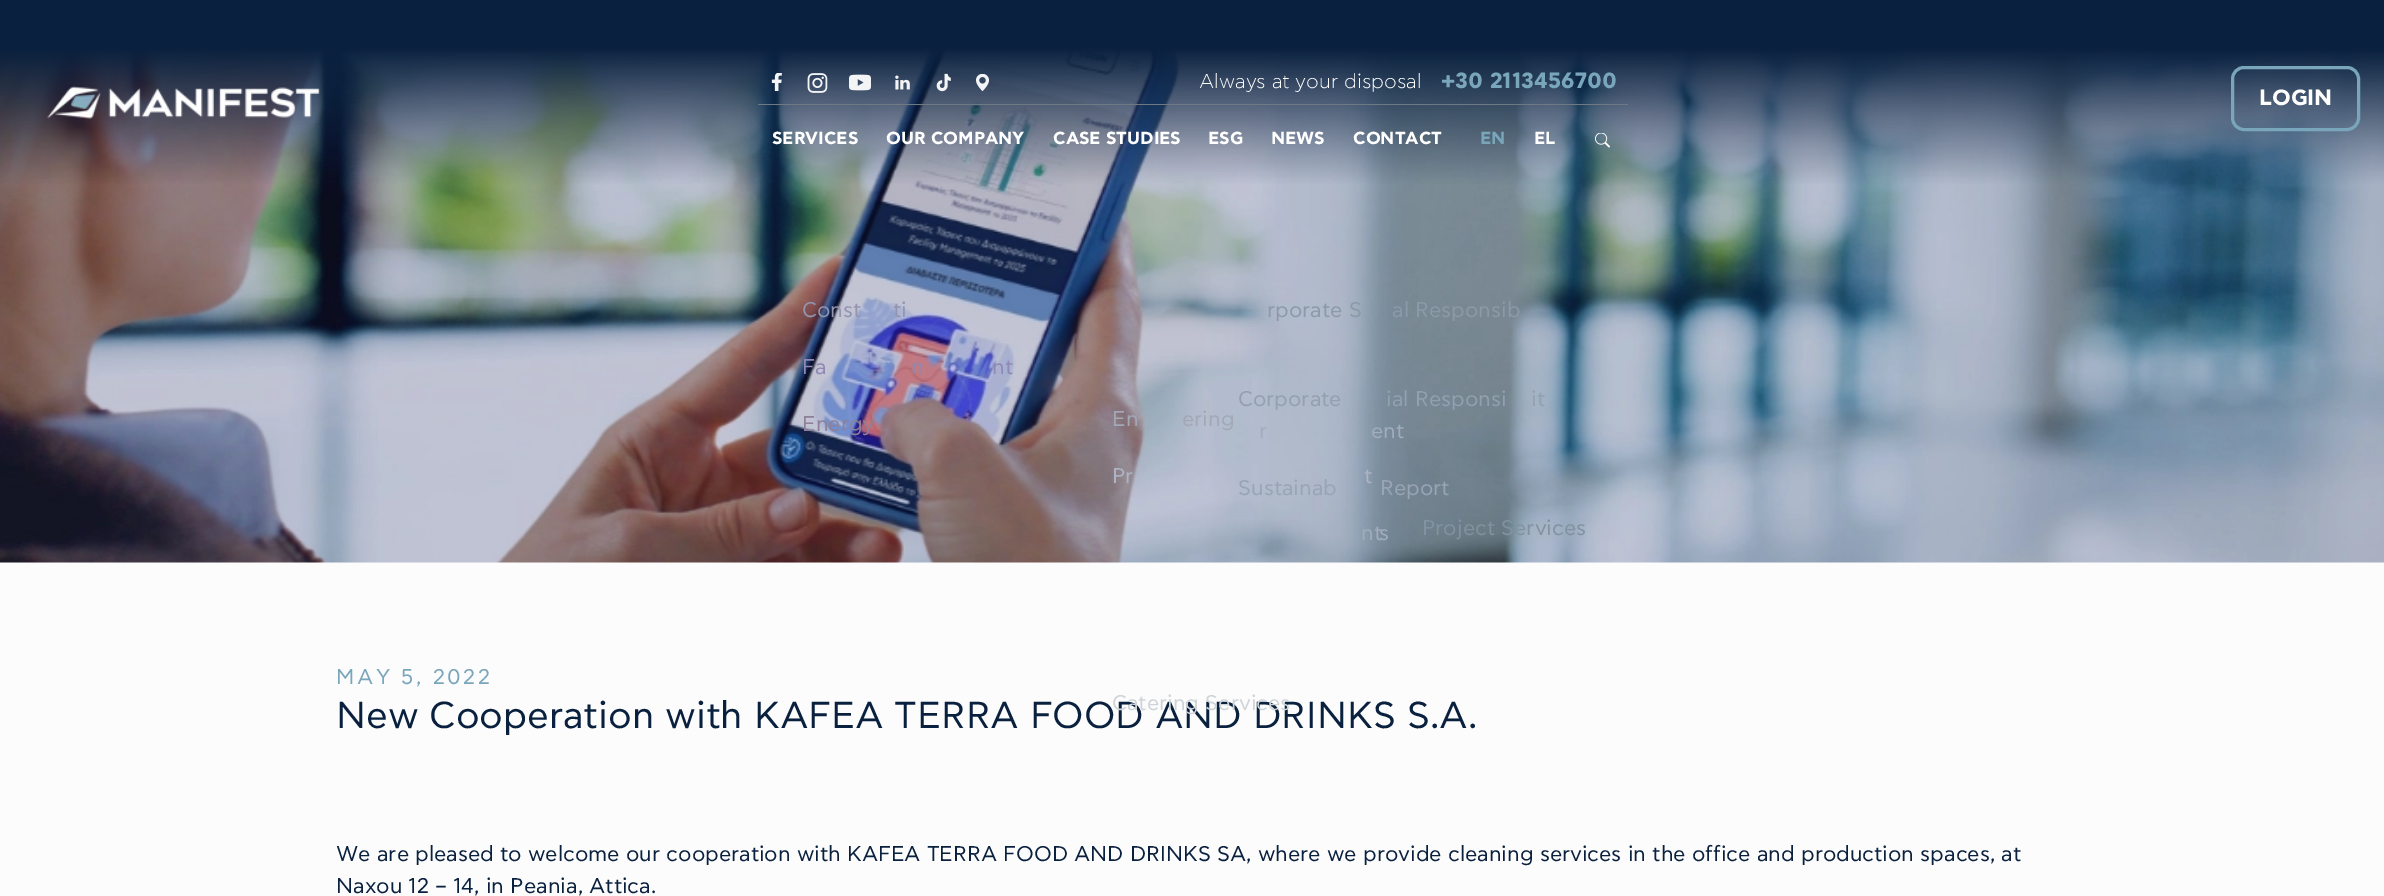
%!PS
<< /PageSize [2384 896] >> setpagedevice
/roundrect { 5 dict begin { /r /h /w /y /x } { exch def } forall
  x r add y moveto x w add y 2 copy h add r arct x w add y h add x 1 index r arct
  x y h add x y r arct x y 2 copy exch w add exch r arct closepath end } def
/picture { 5 dict begin { /h /w /y /x /name } { exch def } forall
  gsave x y translate w h scale
  w h 8 [w 0 0 h 0 0] name (r) file false 3 colorimage grestore end } def
0 896 translate 1 -1 scale
4 setmiterlimit
0.988 setgray
0 0 2384 896 rectfill
(img9.rgb) 0 0 2384 563 picture
(img1.rgb) 47 86 273 33 picture
0.435 0.475 0.518 setrgbcolor
758 104 870 1 rectfill
(img2.rgb) 771 73 11 18 picture
(img3.rgb) 807 73 21 20 picture
(img4.rgb) 849 74 22 17 picture
(img5.rgb) 895 75 15 15 picture
(img6.rgb) 936 73 15 19 picture
(img7.rgb) 975 74 15 17 picture
/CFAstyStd-Light [20 0 0 -20 0 0] selectfont
1 setgray
1199 88 moveto (Always at your disposal) show
/CFAstyStd-Bold [22 0 0 -22 0 0] selectfont
0.478 0.651 0.737 setrgbcolor
1441 88 moveto (+30 2113456700) show
/CFAstyStd-Bold [17.5 0 0 -17.5 0 0] selectfont
1 setgray
772 144 moveto (SERVICES) show
/CFAstyStd-Regular [21.25 0 0 -21.25 0 0] selectfont
0.576 0.58 0.686 setrgbcolor
802 317 moveto (Const) show
893 317 moveto (ti) show
0.639 0.659 0.714 setrgbcolor
1112 426 moveto (En) show
1182 426 moveto (ering) show
0.506 0.573 0.627 setrgbcolor
1422 535 moveto (Project Services) show
0.678 0.706 0.773 setrgbcolor
1112 483 moveto (Pr) show
1364 483 moveto (t) show
0.631 0.678 0.745 setrgbcolor
1361 540 moveto (nt) show
0.561 0.533 0.706 setrgbcolor
802 374 moveto (Fa) show
911 374 moveto (n) show
992 374 moveto (nt) show
/CFAstyStd-Regular [37.5 0 0 -37.5 0 0] selectfont
0.035 0.125 0.243 setrgbcolor
336 728 moveto (New Cooperation with KAFEA TERRA FOOD AND DRINKS S.A.) show
/CFAstyStd-Regular [21.25 0 0 -21.25 0 0] selectfont
0.812 0.831 0.851 setrgbcolor
1112 710 moveto (Catering Services) show
0.553 0.502 0.596 setrgbcolor
802 431 moveto (Energy) show
0.631 0.678 0.745 setrgbcolor
1379 540 moveto (s) show
/CFAstyStd-Bold [17.5 0 0 -17.5 0 0] selectfont
1 setgray
886 144 moveto (OUR COMPANY) show
1053 144 moveto (CASE STUDIES) show
1208 144 moveto (ESG) show
/CFAstyStd-Regular [21.25 0 0 -21.25 0 0] selectfont
0.545 0.604 0.663 setrgbcolor
1267 317 moveto (rporate S) show
1392 317 moveto (al Responsib) show
0.573 0.627 0.686 setrgbcolor
1238 406 moveto (Corporate) show
1386 406 moveto (ial Responsi) show
1531 406 moveto (it) show
0.631 0.678 0.745 setrgbcolor
1259 438 moveto (r) show
1371 438 moveto (ent) show
0.596 0.647 0.71 setrgbcolor
1238 495 moveto (Sustainab) show
1380 495 moveto (Report) show
/CFAstyStd-Bold [17.5 0 0 -17.5 0 0] selectfont
1 setgray
1271 144 moveto (NEWS) show
1353 144 moveto (CONTACT) show
0.478 0.651 0.737 setrgbcolor
1480 144 moveto (EN) show
1 setgray
1534 144 moveto (EL) show
(img8.rgb) 1595 133 15 15 picture
0.478 0.651 0.737 setrgbcolor
3 setlinewidth
2232.5 67.5 126 62 11.5 roundrect stroke
/CFAstyStd-Bold [22 0 0 -22 0 0] selectfont
1 setgray
2259 105 moveto (LOGIN) show
/CFAstyStd-Regular [21.25 0 0 -21.25 0 0] selectfont
0.478 0.651 0.737 setrgbcolor
336 684 moveto 2.5 0 (MAY 5, 2022) ashow
0.035 0.125 0.243 setrgbcolor
336 861 moveto (We are pleased to welcome our cooperation with KAFEA TERRA FOOD AND DRINKS SA, where we provide cleaning services in the office and production spaces, at) show
336 893 moveto (Naxou 12 – 14, in Peania, Attica.) show
showpage
